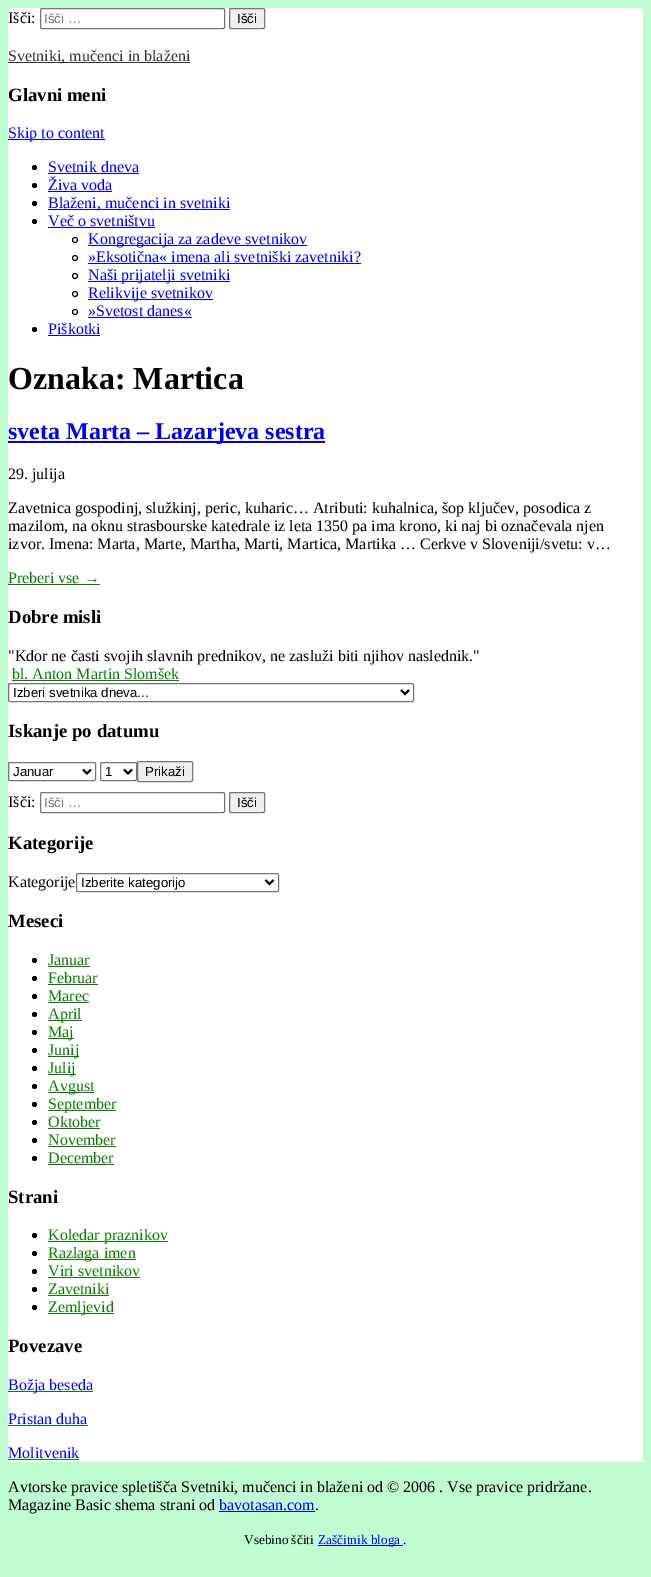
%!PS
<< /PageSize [651 1577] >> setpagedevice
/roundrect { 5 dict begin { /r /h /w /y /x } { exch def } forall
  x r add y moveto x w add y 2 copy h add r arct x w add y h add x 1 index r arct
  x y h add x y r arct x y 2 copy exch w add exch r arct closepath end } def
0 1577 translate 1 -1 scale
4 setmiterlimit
0.749 0.988 0.816 setrgbcolor
0 0 651 1577 rectfill
1 setgray
8 8 635 1454 rectfill
/LiberationSerif-Regular [16 0 0 -16 0 0] selectfont
0 setgray
8 23 moveto (Išči:) show
0.463 setgray
40.5 8.5 184 20 1.5 roundrect stroke
/LiberationSans-Regular [13.25 0 0 -13.25 0 0] selectfont
0.459 setgray
44 23 moveto (Išči …) show
0.937 setgray
229.5 8.5 35 20 1.5 roundrect gsave fill grestore
0.463 setgray
stroke
0 setgray
237 23 moveto (Išči) show
0.2 setgray
8 62 182 1 rectfill
/LiberationSerif-Regular [16 0 0 -16 0 0] selectfont
8 61 moveto (Svetniki, mučenci in blaženi) show
/LiberationSerif-Bold [18.75 0 0 -18.75 0 0] selectfont
0 setgray
8 101 moveto (Glavni meni) show
0 0 0.933 setrgbcolor
8 139 97 1 rectfill
/LiberationSerif-Regular [16 0 0 -16 0 0] selectfont
8 138 moveto (Skip to content) show
0 setgray
newpath 34.5 167.5 2.5 0 360 arc closepath fill
0 0 0.933 setrgbcolor
48 172 moveto (Svetnik dneva) show
48 173 91 1 rectfill
0 setgray
newpath 34.5 185.5 2.5 0 360 arc closepath fill
0 0 0.933 setrgbcolor
48 190 moveto (Živa voda) show
48 191 64 1 rectfill
0 setgray
newpath 34.5 203.5 2.5 0 360 arc closepath fill
0 0 0.933 setrgbcolor
48 209 182 1 rectfill
48 208 moveto (Blaženi, mučenci in svetniki) show
0 setgray
newpath 34.5 221.5 2.5 0 360 arc closepath fill
0 0 0.933 setrgbcolor
48 226 moveto (Več o svetništvu) show
48 227 107 1 rectfill
0 setgray
newpath 75 240 2.5 0 360 arc closepath stroke
0 0 0.933 setrgbcolor
88 245 219 1 rectfill
88 244 moveto (Kongregacija za zadeve svetnikov) show
0 setgray
newpath 75 258 2.5 0 360 arc closepath stroke
0 0 0.933 setrgbcolor
88 262 moveto (»Eksotična« imena ali svetniški zavetniki?) show
88 263 273 1 rectfill
0 setgray
newpath 75 276 2.5 0 360 arc closepath stroke
0 0 0.933 setrgbcolor
88 281 142 1 rectfill
88 280 moveto (Naši prijatelji svetniki) show
0 setgray
newpath 75 294 2.5 0 360 arc closepath stroke
0 0 0.933 setrgbcolor
88 299 125 1 rectfill
88 298 moveto (Relikvije svetnikov) show
0 setgray
newpath 75 312 2.5 0 360 arc closepath stroke
0 0 0.933 setrgbcolor
88 316 moveto (»Svetost danes«) show
88 317 104 1 rectfill
0 setgray
newpath 34.5 329.5 2.5 0 360 arc closepath fill
0 0 0.933 setrgbcolor
48 334 moveto (Piškotki) show
48 335 52 1 rectfill
/LiberationSerif-Bold [32 0 0 -32 0 0] selectfont
0 setgray
8 389 moveto (Oznaka: Martica) show
0 0 0.933 setrgbcolor
8 441 317 2 rectfill
/LiberationSerif-Bold [24 0 0 -24 0 0] selectfont
8 439 moveto (sveta Marta – Lazarjeva sestra) show
/LiberationSerif-Regular [16 0 0 -16 0 0] selectfont
0 setgray
8 479 moveto (29. julija) show
8 513 moveto (Zavetnica gospodinj, služkinj, peric, kuharic… Atributi: kuhalnica, šop ključev, posodica z) show
8 531 moveto (mazilom, na oknu strasbourske katedrale iz leta 1350 pa ima krono, ki naj bi označevala njen) show
8 549 moveto (izvor. Imena: Marta, Marte, Martha, Marti, Martica, Martika … Cerkve v Sloveniji/svetu: v…) show
0.035 0.486 0.004 setrgbcolor
8 583 moveto (Preberi vse →) show
8 584 92 1 rectfill
/LiberationSerif-Bold [18.75 0 0 -18.75 0 0] selectfont
0 setgray
8 623 moveto (Dobre misli) show
/LiberationSerif-Regular [16 0 0 -16 0 0] selectfont
8 661 moveto ("Kdor ne časti svojih slavnih prednikov, ne zasluži biti njihov naslednik.") show
0.035 0.486 0.004 setrgbcolor
12 679 moveto (bl. Anton Martin Slomšek) show
12 680 167 1 rectfill
0.463 setgray
8.5 683.5 405 18 1.5 roundrect stroke
0 setgray
2 setlinewidth
newpath 401 690 moveto 405 694 lineto 409 690 lineto stroke
/LiberationSans-Regular [13.25 0 0 -13.25 0 0] selectfont
13 697 moveto (Izberi svetnika dneva...) show
/LiberationSerif-Bold [18.75 0 0 -18.75 0 0] selectfont
8 737 moveto (Iskanje po datumu) show
0.463 setgray
1 setlinewidth
8.5 762.5 87 18 1.5 roundrect stroke
0 setgray
2 setlinewidth
newpath 83 769.5 moveto 87 773.5 lineto 91 769.5 lineto stroke
/LiberationSans-Regular [13.25 0 0 -13.25 0 0] selectfont
13 776 moveto (Januar) show
0.463 setgray
1 setlinewidth
100.5 762.5 36 18 1.5 roundrect stroke
0 setgray
2 setlinewidth
newpath 124 769.5 moveto 128 773.5 lineto 132 769.5 lineto stroke
105 776 moveto (1) show
0.937 setgray
137.5 761.5 55 20 1.5 roundrect gsave fill grestore
0.463 setgray
1 setlinewidth
stroke
0 setgray
145 776 moveto (Prikaži) show
/LiberationSerif-Regular [16 0 0 -16 0 0] selectfont
8 807 moveto (Išči:) show
0.463 setgray
40.5 792.5 184 20 1.5 roundrect stroke
/LiberationSans-Regular [13.25 0 0 -13.25 0 0] selectfont
0.459 setgray
44 807 moveto (Išči …) show
0.937 setgray
229.5 792.5 35 20 1.5 roundrect gsave fill grestore
0.463 setgray
stroke
0 setgray
237 807 moveto (Išči) show
/LiberationSerif-Bold [18.75 0 0 -18.75 0 0] selectfont
8 849 moveto (Kategorije) show
/LiberationSerif-Regular [16 0 0 -16 0 0] selectfont
8 887 moveto (Kategorije) show
0.463 setgray
76.5 873.5 202 18 1.5 roundrect stroke
0 setgray
2 setlinewidth
newpath 265.5 880 moveto 269.5 884 lineto 273.5 880 lineto stroke
/LiberationSans-Regular [13.25 0 0 -13.25 0 0] selectfont
81 887 moveto (Izberite kategorijo) show
/LiberationSerif-Bold [18.75 0 0 -18.75 0 0] selectfont
8 927 moveto (Meseci) show
newpath 34.5 960.5 2.5 0 360 arc closepath fill
/LiberationSerif-Regular [16 0 0 -16 0 0] selectfont
0.035 0.486 0.004 setrgbcolor
48 965 moveto (Januar) show
48 966 42 1 rectfill
0 setgray
newpath 34.5 978.5 2.5 0 360 arc closepath fill
0.035 0.486 0.004 setrgbcolor
48 983 moveto (Februar) show
48 984 50 1 rectfill
0 setgray
newpath 34.5 996.5 2.5 0 360 arc closepath fill
0.035 0.486 0.004 setrgbcolor
48 1001 moveto (Marec) show
48 1002 41 1 rectfill
0 setgray
newpath 34.5 1014.5 2.5 0 360 arc closepath fill
0.035 0.486 0.004 setrgbcolor
48 1020 34 1 rectfill
48 1019 moveto (April) show
0 setgray
newpath 34.5 1032.5 2.5 0 360 arc closepath fill
0.035 0.486 0.004 setrgbcolor
48 1038 26 1 rectfill
48 1037 moveto (Maj) show
0 setgray
newpath 34.5 1050.5 2.5 0 360 arc closepath fill
0.035 0.486 0.004 setrgbcolor
48 1056 31 1 rectfill
48 1055 moveto (Junij) show
0 setgray
newpath 34.5 1068.5 2.5 0 360 arc closepath fill
0.035 0.486 0.004 setrgbcolor
48 1074 28 1 rectfill
48 1073 moveto (Julij) show
0 setgray
newpath 34.5 1086.5 2.5 0 360 arc closepath fill
0.035 0.486 0.004 setrgbcolor
48 1092 46 1 rectfill
48 1091 moveto (Avgust) show
0 setgray
newpath 34.5 1104.5 2.5 0 360 arc closepath fill
0.035 0.486 0.004 setrgbcolor
48 1110 68 1 rectfill
48 1109 moveto (September) show
0 setgray
newpath 34.5 1122.5 2.5 0 360 arc closepath fill
0.035 0.486 0.004 setrgbcolor
48 1127 moveto (Oktober) show
48 1128 52 1 rectfill
0 setgray
newpath 34.5 1140.5 2.5 0 360 arc closepath fill
0.035 0.486 0.004 setrgbcolor
48 1145 moveto (November) show
48 1146 68 1 rectfill
0 setgray
newpath 34.5 1158.5 2.5 0 360 arc closepath fill
0.035 0.486 0.004 setrgbcolor
48 1163 moveto (December) show
48 1164 66 1 rectfill
/LiberationSerif-Bold [18.75 0 0 -18.75 0 0] selectfont
0 setgray
8 1203 moveto (Strani) show
newpath 34.5 1235.5 2.5 0 360 arc closepath fill
0.035 0.486 0.004 setrgbcolor
48 1241 120 1 rectfill
/LiberationSerif-Regular [16 0 0 -16 0 0] selectfont
48 1240 moveto (Koledar praznikov) show
0 setgray
newpath 34.5 1253.5 2.5 0 360 arc closepath fill
0.035 0.486 0.004 setrgbcolor
48 1259 88 1 rectfill
48 1258 moveto (Razlaga imen) show
0 setgray
newpath 34.5 1271.5 2.5 0 360 arc closepath fill
0.035 0.486 0.004 setrgbcolor
48 1276 moveto (Viri svetnikov) show
48 1277 92 1 rectfill
0 setgray
newpath 34.5 1289.5 2.5 0 360 arc closepath fill
0.035 0.486 0.004 setrgbcolor
48 1294 moveto (Zavetniki) show
48 1295 61 1 rectfill
0 setgray
newpath 34.5 1307.5 2.5 0 360 arc closepath fill
0.035 0.486 0.004 setrgbcolor
48 1313 66 1 rectfill
48 1312 moveto (Zemljevid) show
/LiberationSerif-Bold [18.75 0 0 -18.75 0 0] selectfont
0 setgray
8 1352 moveto (Povezave) show
0.035 0.486 0.004 setrgbcolor
8 1391 85 1 rectfill
/LiberationSerif-Regular [16 0 0 -16 0 0] selectfont
0 0 1 setrgbcolor
8 1390 moveto (Božja beseda) show
8 1424 moveto (Pristan duha) show
0.035 0.486 0.004 setrgbcolor
8 1425 80 1 rectfill
0 0 1 setrgbcolor
8 1458 moveto (Molitvenik) show
0.035 0.486 0.004 setrgbcolor
8 1459 71 1 rectfill
0 setgray
8 1492 moveto (Avtorske pravice spletišča Svetniki, mučenci in blaženi od © 2006 . Vse pravice pridržane.) show
8 1510 moveto (Magazine Basic shema strani od) show
0 0 0.933 setrgbcolor
219 1510 moveto (bavotasan.com) show
0 setgray
315 1510 moveto (.) show
0 0 0.933 setrgbcolor
219 1511 96 1 rectfill
/LiberationSerif-Regular [13.25 0 0 -13.25 0 0] selectfont
0 setgray
244 1544 moveto (Vsebino ščiti) show
0 0 0.933 setrgbcolor
318 1545 85 1 rectfill
318 1544 moveto (Zaščitnik bloga) show
0 setgray
403 1544 moveto (.) show
showpage
